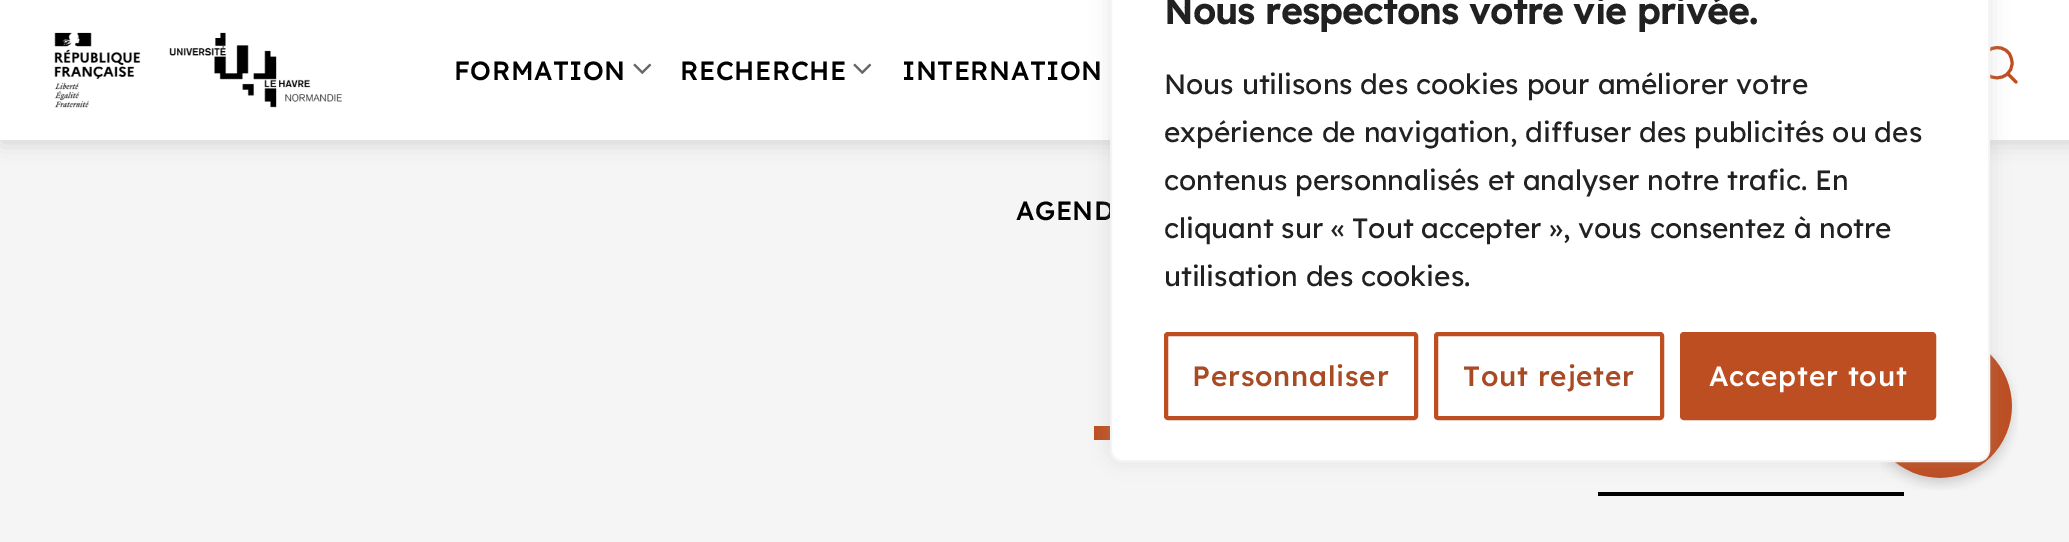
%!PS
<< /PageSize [2069 542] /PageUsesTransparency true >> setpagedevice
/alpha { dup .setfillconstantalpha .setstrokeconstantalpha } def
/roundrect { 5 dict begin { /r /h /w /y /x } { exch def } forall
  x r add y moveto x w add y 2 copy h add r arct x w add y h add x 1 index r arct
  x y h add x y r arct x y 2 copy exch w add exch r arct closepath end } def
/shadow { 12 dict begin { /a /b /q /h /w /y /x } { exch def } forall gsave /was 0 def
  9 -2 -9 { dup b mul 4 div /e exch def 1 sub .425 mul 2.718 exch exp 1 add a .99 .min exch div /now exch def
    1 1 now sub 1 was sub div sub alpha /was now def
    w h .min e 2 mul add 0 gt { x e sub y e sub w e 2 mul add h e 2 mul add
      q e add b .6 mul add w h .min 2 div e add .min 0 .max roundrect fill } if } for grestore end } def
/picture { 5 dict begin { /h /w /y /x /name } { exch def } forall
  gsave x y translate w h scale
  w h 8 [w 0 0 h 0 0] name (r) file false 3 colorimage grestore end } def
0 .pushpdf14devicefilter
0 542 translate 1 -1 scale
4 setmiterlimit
0.961 setgray
0 0 2069 542 rectfill
0 setgray
2 2 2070 140 0 10 0.15 shadow
1 setgray
0 0 2069 140 rectfill
(img1.rgb) 54 32 288 76 picture
/LexendDeca-Medium [26.25 0 0 -26.25 0 0] selectfont
0 setgray
454 80 moveto 0.5 0 (FORMATION) ashow
(img2.rgb) 633 63 19 11 picture
680 80 moveto 0.5 0 (RECHERCHE) ashow
(img2.rgb) 853 63 19 11 picture
902 80 moveto 0.5 0 (INTERNATION) ashow
1016 220 moveto 0.5 0 (AGEND) ashow
0.737 0.306 0.129 setrgbcolor
3 setlinewidth
1 setlinecap
1 setlinejoin
newpath 2012 63 moveto 2012 82.5 1982.5 83 1981.5 63.5 curveto 1981 48.5 2001 41.5 2009.5 54 curveto 2011 57 2012 59.5 2012 63 curveto closepath 2016 82 moveto 2007.5 73.5 lineto stroke
1094 426 16 14 rectfill
0 setgray
1598 492 306 4 rectfill
(img3.rgb) 1881 353 137 137 picture
0.675 0.671 0.671 setrgbcolor
1110 -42 880 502 12 10 0.3 shadow
1 setgray
1111 -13 878 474 11 roundrect gsave fill grestore
0.957 setgray
2 setlinewidth
0 setlinecap
0 setlinejoin
stroke
/LexendDeca-Bold [36 0 0 -36 0 0] selectfont
0.129 setgray
1164 24 moveto (Nous respectons votre vie privée.) show
/LexendDeca-Regular [28 0 0 -28 0 0] selectfont
1164 94 moveto (Nous utilisons des cookies pour améliorer votre) show
1164 142 moveto (expérience de navigation, diffuser des publicités ou des) show
1164 190 moveto (contenus personnalisés et analyser notre trafic. En) show
1164 238 moveto (cliquant sur « Tout accepter », vous consentez à notre) show
1164 286 moveto (utilisation des cookies.) show
0.737 0.306 0.129 setrgbcolor
4 setlinewidth
1166 334 250 84 2 roundrect stroke
/LexendDeca-Medium [28 0 0 -28 0 0] selectfont
0.659 0.29 0.137 setrgbcolor
1192 386 moveto 0.8 0 (Personnaliser) ashow
0.737 0.306 0.129 setrgbcolor
1436 334 226 84 2 roundrect stroke
0.659 0.29 0.137 setrgbcolor
1463 386 moveto 0.8 0 (Tout rejeter) ashow
0.737 0.306 0.129 setrgbcolor
1682 334 252 84 2 roundrect gsave fill grestore
stroke
1 setgray
1709 386 moveto 0.8 0 (Accepter tout) ashow
.poppdf14devicefilter showpage
